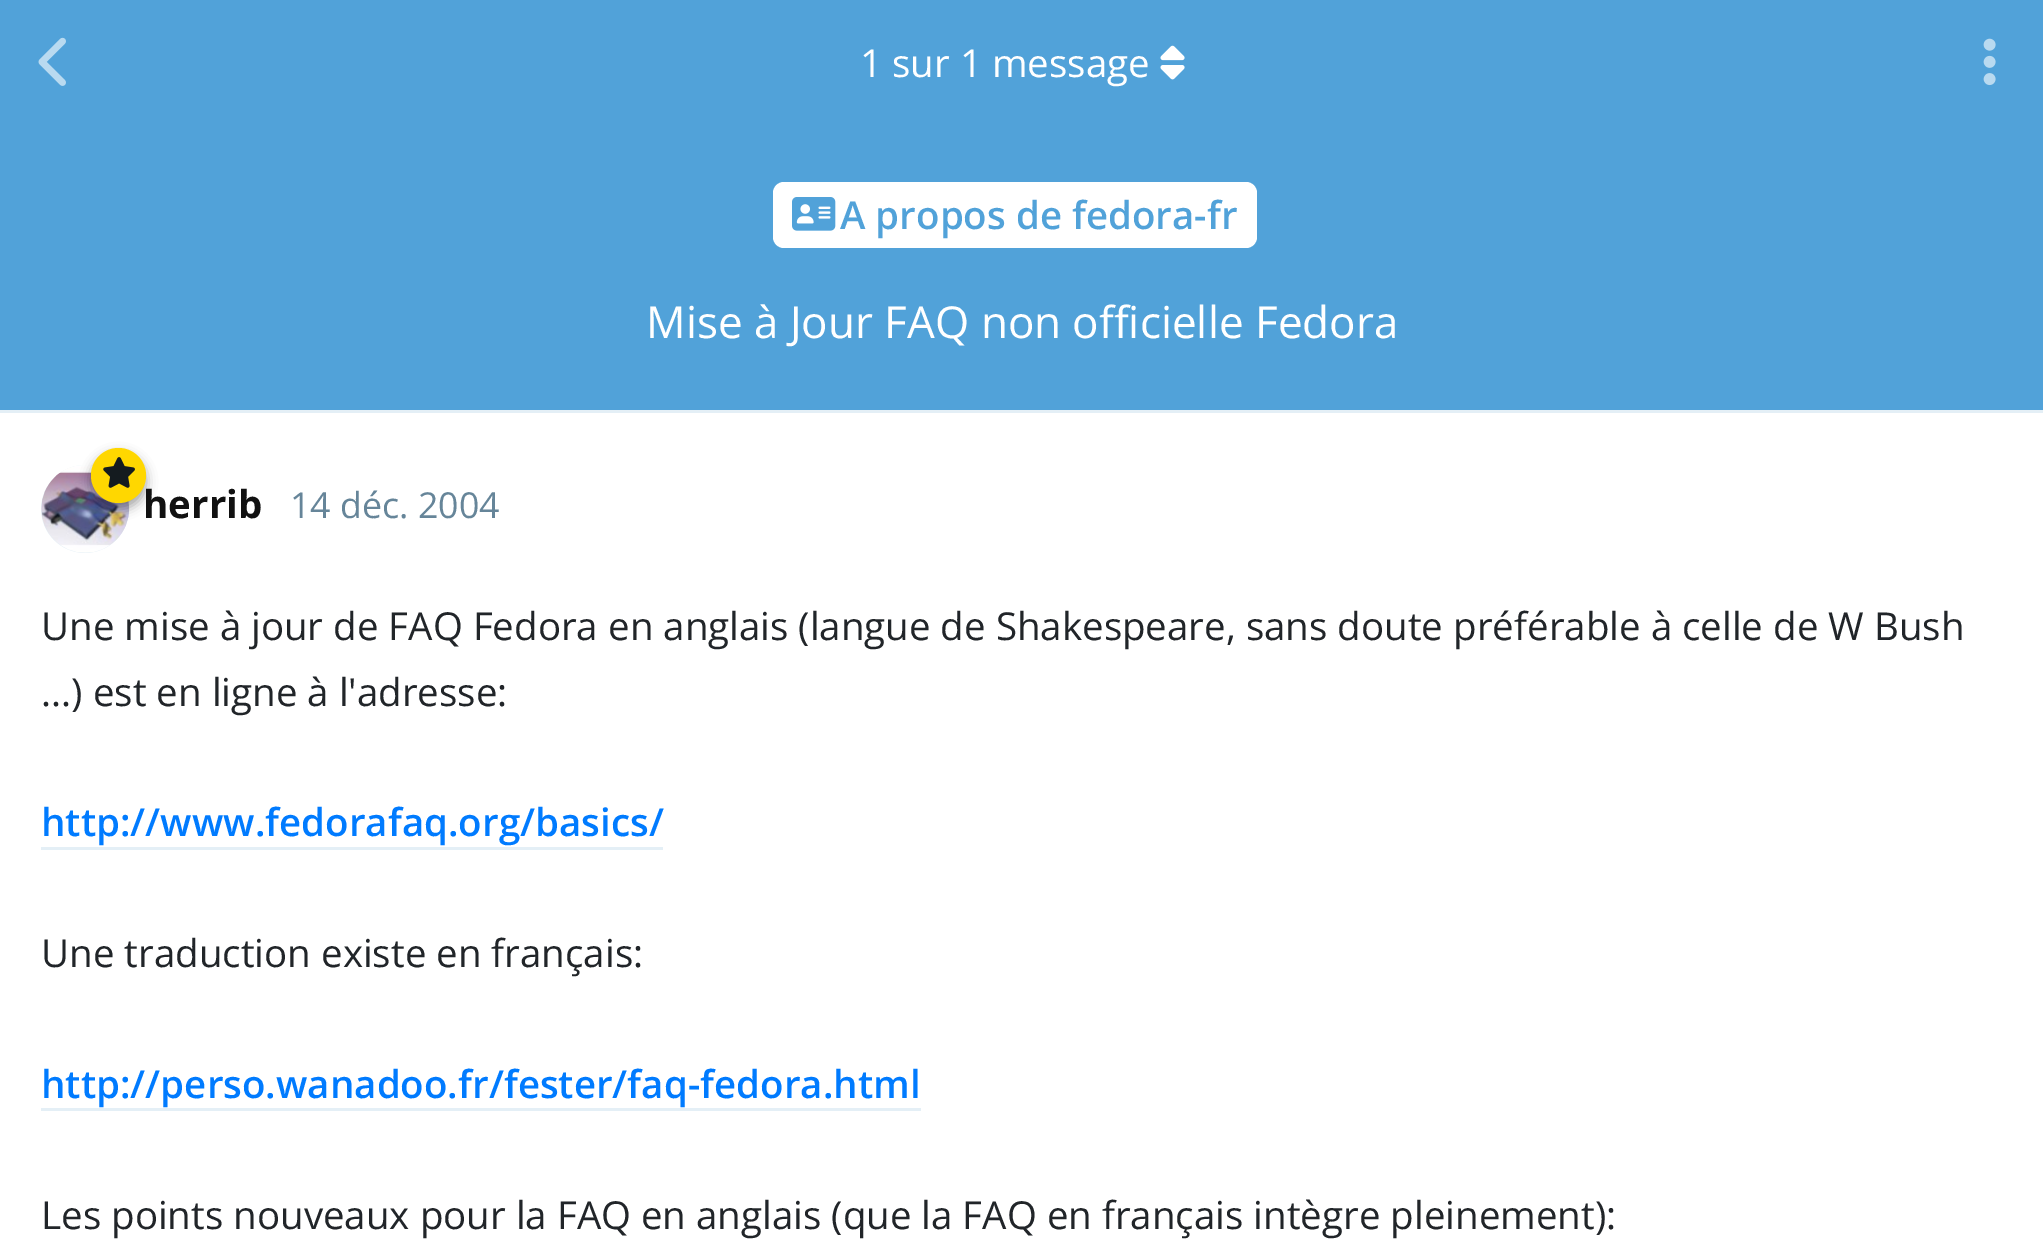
%!PS
<< /PageSize [2043 1252] /PageUsesTransparency true >> setpagedevice
/alpha { dup .setfillconstantalpha .setstrokeconstantalpha } def
/roundrect { 5 dict begin { /r /h /w /y /x } { exch def } forall
  x r add y moveto x w add y 2 copy h add r arct x w add y h add x 1 index r arct
  x y h add x y r arct x y 2 copy exch w add exch r arct closepath end } def
/shadow { 12 dict begin { /a /b /q /h /w /y /x } { exch def } forall gsave /was 0 def
  9 -2 -9 { dup b mul 4 div /e exch def 1 sub .425 mul 2.718 exch exp 1 add a .99 .min exch div /now exch def
    1 1 now sub 1 was sub div sub alpha /was now def
    w h .min e 2 mul add 0 gt { x e sub y e sub w e 2 mul add h e 2 mul add
      q e add b .6 mul add w h .min 2 div e add .min 0 .max roundrect fill } if } for grestore end } def
/picture { 5 dict begin { /h /w /y /x /name } { exch def } forall
  gsave x y translate w h scale
  w h 8 [w 0 0 h 0 0] name (r) file false 3 colorimage grestore end } def
0 .pushpdf14devicefilter
0 1252 translate 1 -1 scale
4 setmiterlimit
1 setgray
0 0 2043 1252 rectfill
0.318 0.635 0.851 setrgbcolor
0 0 2043 410 rectfill
(img1.rgb) 38 37 28 49 picture
0.894 0.937 0.965 setrgbcolor
0 410 2043 3 rectfill
/OpenSans-Regular [38.5 0 0 -38.5 0 0] selectfont
1 setgray
860 77 moveto (1 sur 1 message) show
(img2.rgb) 1160 45 25 35 picture
(img3.rgb) 1983 38 13 48 picture
0.894 0.937 0.965 setrgbcolor
newpath 85 509 44 0 360 arc closepath fill
(img5.rgb) 41 465 89 88 picture
0 setgray
91 454 55 55 27.5 5.5 0.35 shadow
1 0.843 0 setrgbcolor
newpath 118.5 475.5 27.5 0 360 arc closepath fill
(img4.rgb) 103 457 32 31 picture
/OpenSans-Bold [38.5 0 0 -38.5 0 0] selectfont
0.067 setgray
143 518 moveto (herrib) show
/OpenSans-Regular [35.75 0 0 -35.75 0 0] selectfont
0.4 0.522 0.6 setrgbcolor
290 518 moveto (14 déc. 2004) show
/OpenSans-Regular [38.5 0 0 -38.5 0 0] selectfont
0.129 0.145 0.161 setrgbcolor
41 640 moveto (Une mise à jour de FAQ Fedora en anglais \(langue de Shakespeare, sans doute préférable à celle de W Bush) show
41 706 moveto (...\) est en ligne à l'adresse:) show
/OpenSans-SemiBold [38.5 0 0 -38.5 0 0] selectfont
0 0.482 1 setrgbcolor
41 836 moveto (http://www.fedorafaq.org/basics/) show
0.894 0.937 0.965 setrgbcolor
41 847 622 3 rectfill
/OpenSans-Regular [38.5 0 0 -38.5 0 0] selectfont
0.129 0.145 0.161 setrgbcolor
41 967 moveto (Une traduction existe en français:) show
/OpenSans-SemiBold [38.5 0 0 -38.5 0 0] selectfont
0 0.482 1 setrgbcolor
41 1098 moveto (http://perso.wanadoo.fr/fester/faq-fedora.html) show
0.894 0.937 0.965 setrgbcolor
41 1108 880 3 rectfill
/OpenSans-Regular [38.5 0 0 -38.5 0 0] selectfont
0.129 0.145 0.161 setrgbcolor
41 1229 moveto (Les points nouveaux pour la FAQ en anglais \(que la FAQ en français intègre pleinement\):) show
1 setgray
773 182 484 66 11 roundrect fill
(img6.rgb) 792 197 44 34 picture
/OpenSans-SemiBold [38.5 0 0 -38.5 0 0] selectfont
0.318 0.635 0.851 setrgbcolor
840 229 moveto (A propos de fedora-fr) show
/OpenSans-Regular [44 0 0 -44 0 0] selectfont
1 setgray
646 338 moveto (Mise à Jour FAQ non officielle Fedora) show
.poppdf14devicefilter showpage
